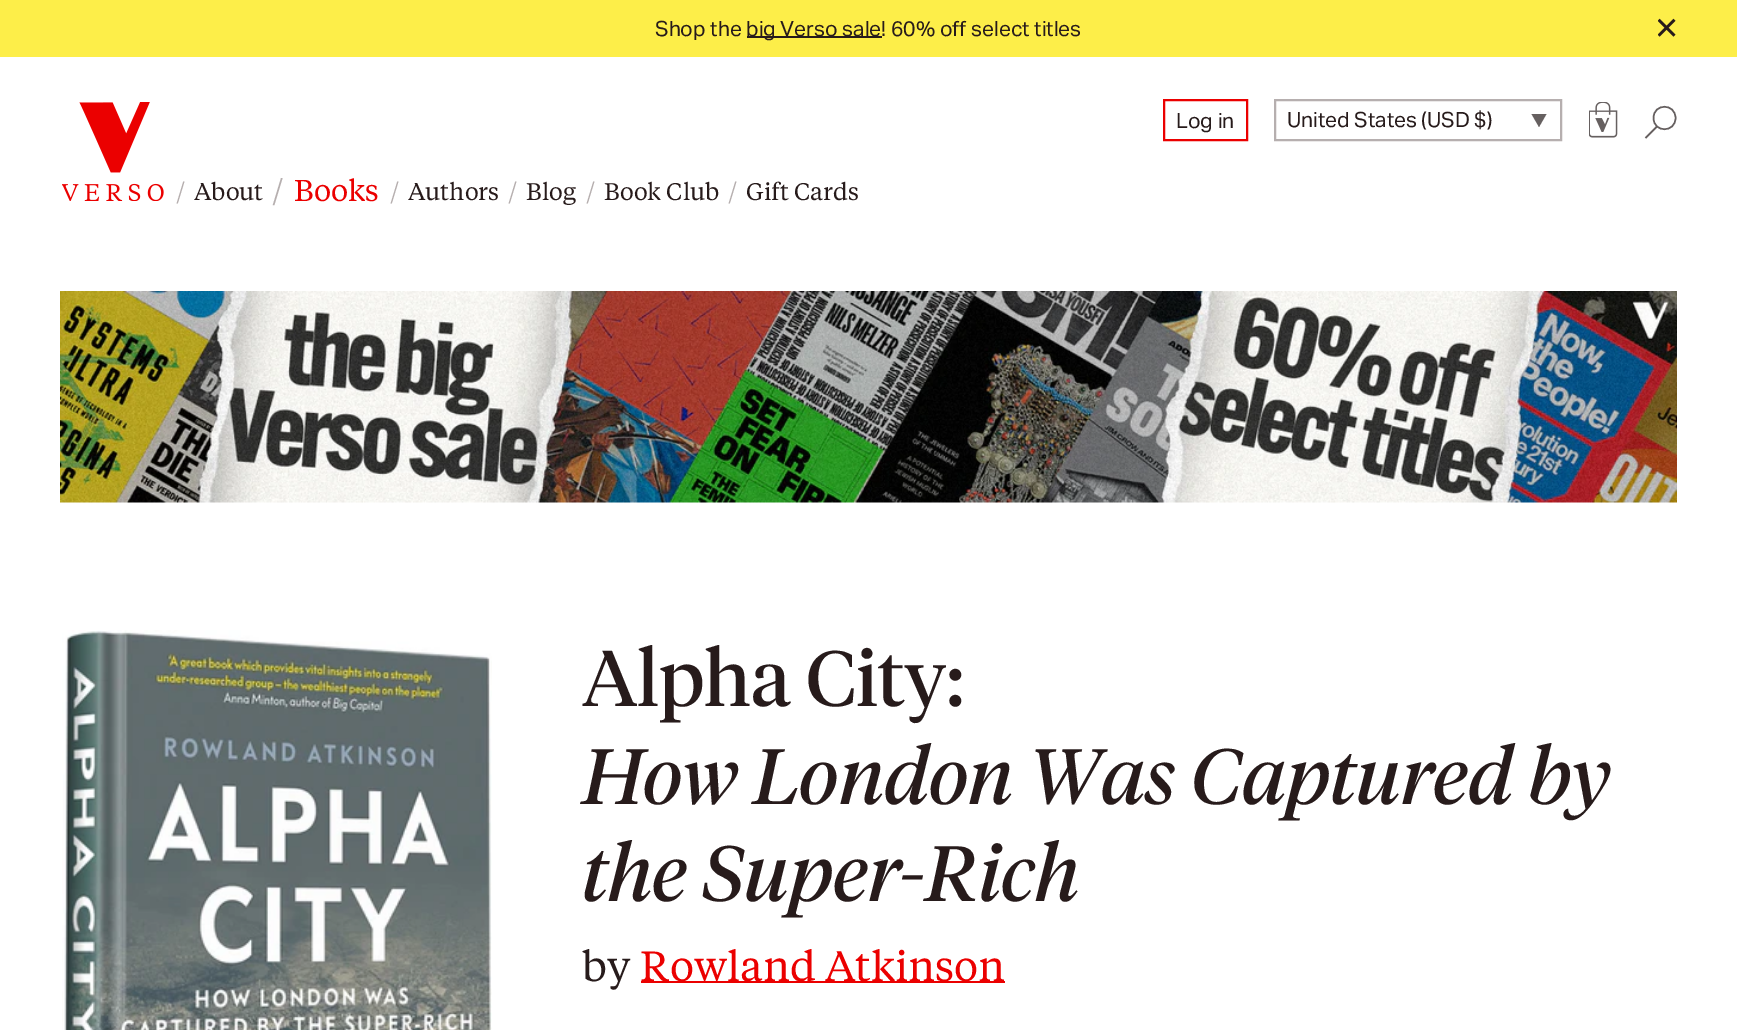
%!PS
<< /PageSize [1737 1030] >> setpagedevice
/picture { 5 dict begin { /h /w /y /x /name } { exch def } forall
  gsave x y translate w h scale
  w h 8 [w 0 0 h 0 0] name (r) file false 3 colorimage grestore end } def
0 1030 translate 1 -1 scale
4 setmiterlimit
1 setgray
0 0 1737 1030 rectfill
0.992 0.933 0.286 setrgbcolor
0 0 1737 57 rectfill
/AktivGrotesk-Regular [21 0 0 -21 0 0] selectfont
0.153 0.106 0.106 setrgbcolor
655 36 moveto (Shop the) show
747 36 135 2 rectfill
746 36 moveto (big Verso sale! 60% off select titles) show
(img1.rgb) 1658 18 18 19 picture
0.922 0 0 setrgbcolor
2 setlinewidth
1164 100 83 40 rectstroke
0.153 0.106 0.106 setrgbcolor
1176 128 moveto (Log in) show
0.714 0.686 0.686 setrgbcolor
1275 100 286 40 rectstroke
0.153 0.106 0.106 setrgbcolor
1287 127 moveto (United States \(USD $\)) show
gsave
1530 114 18 14 rectclip
0.4 0.376 0.376 setrgbcolor
newpath 1539 127 moveto 1531 113 lineto 1547 113 lineto closepath fill
grestore
(img2.rgb) 1589 102 29 36 picture
0.4 0.376 0.376 setrgbcolor
1.5 setlinewidth
newpath 1657.5 126 moveto 1645.5 138 lineto 1675.5 118 moveto 1675.5 133 1653.5 133 1653.5 118 curveto 1653.5 103 1675.5 103 1675.5 118 curveto closepath stroke
(img3.rgb) 62 102 102 99 picture
/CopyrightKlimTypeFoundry-Regular [24 0 0 -24 0 0] selectfont
0.714 0.686 0.686 setrgbcolor
176 200 moveto (/) show
0.153 0.106 0.106 setrgbcolor
194 200 moveto (About) show
/CopyrightKlimTypeFoundry-Regular [30 0 0 -30 0 0] selectfont
0.714 0.686 0.686 setrgbcolor
272 201 moveto (/) show
0.922 0 0 setrgbcolor
294 201 moveto (Books) show
/CopyrightKlimTypeFoundry-Regular [24 0 0 -24 0 0] selectfont
0.714 0.686 0.686 setrgbcolor
390 200 moveto (/) show
0.153 0.106 0.106 setrgbcolor
408 200 moveto (Authors) show
0.714 0.686 0.686 setrgbcolor
508 200 moveto (/) show
0.153 0.106 0.106 setrgbcolor
526 200 moveto (Blog) show
0.714 0.686 0.686 setrgbcolor
586 200 moveto (/) show
0.153 0.106 0.106 setrgbcolor
604 200 moveto (Book Club) show
0.714 0.686 0.686 setrgbcolor
728 200 moveto (/) show
0.153 0.106 0.106 setrgbcolor
746 200 moveto (Gift Cards) show
(img4.rgb) 60 291 1617 212 picture
(img5.rgb) 62 630 430 400 picture
/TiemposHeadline-Regular [78 0 0 -78 0 0] selectfont
582 706 moveto (Alpha City:) show
/TiemposHeadline-Italic [78 0 0 -78 0 0] selectfont
582 804 moveto (How London Was Captured by) show
582 901 moveto (the Super-Rich) show
/CopyrightKlimTypeFoundry-Regular [42 0 0 -42 0 0] selectfont
582 981 moveto (by) show
0.922 0 0 setrgbcolor
641 981 364 2 rectfill
640 981 moveto (Rowland Atkinson) show
showpage
